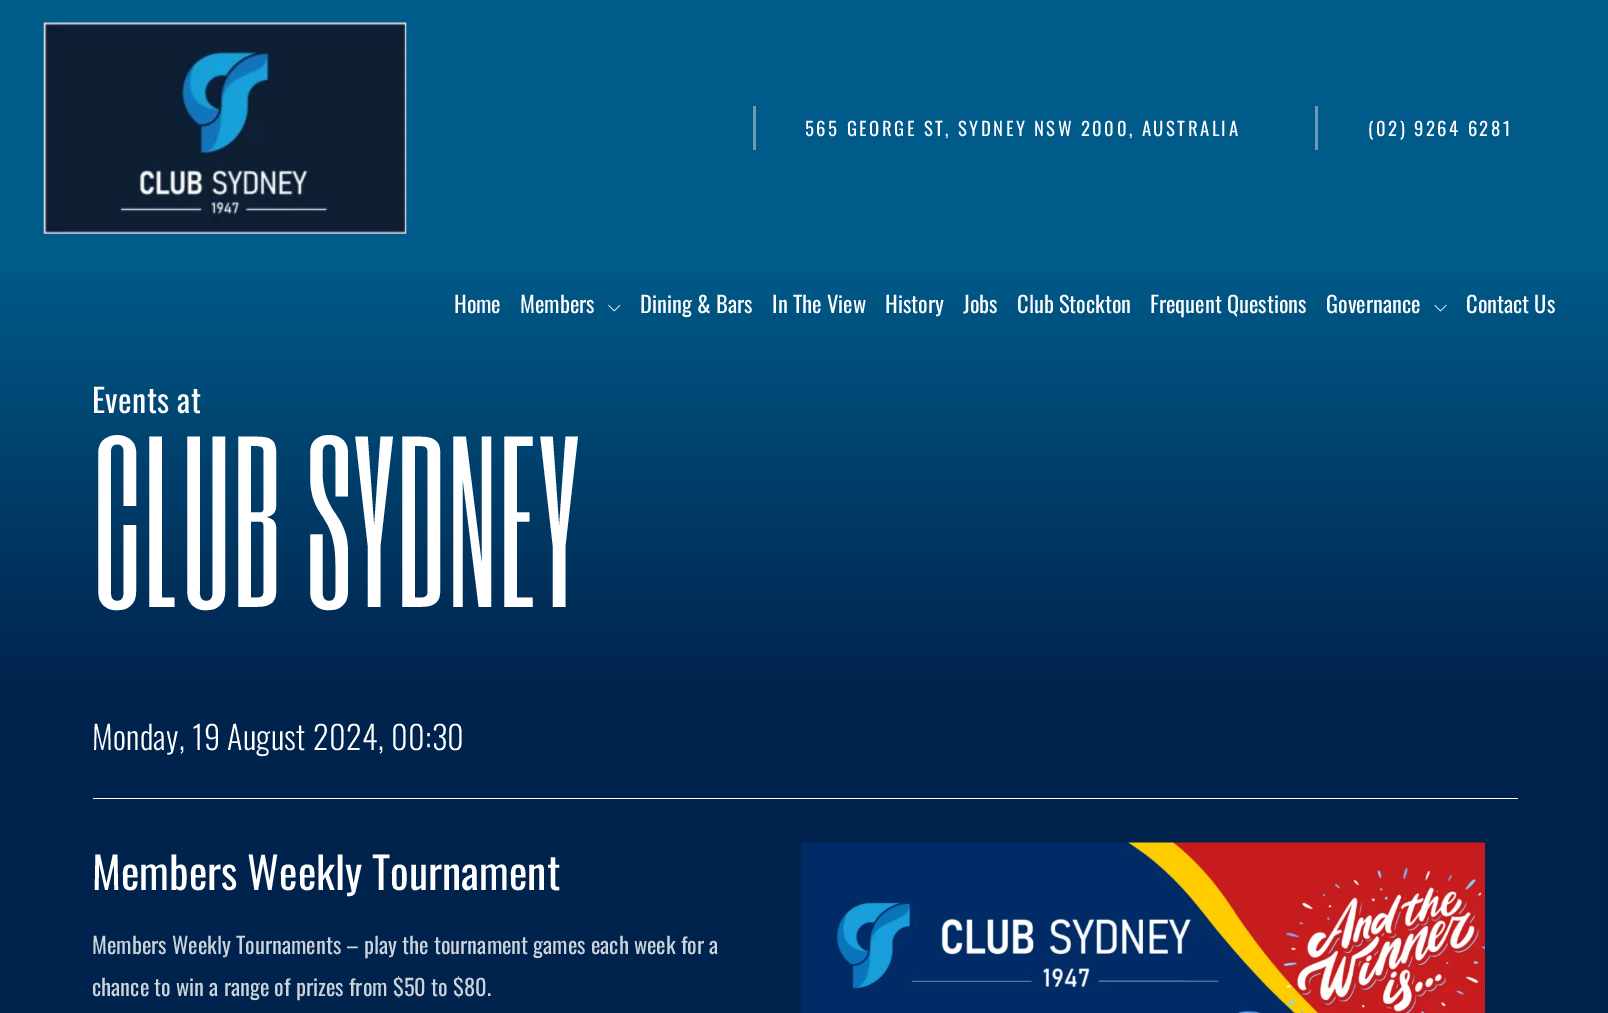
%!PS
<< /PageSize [1608 1013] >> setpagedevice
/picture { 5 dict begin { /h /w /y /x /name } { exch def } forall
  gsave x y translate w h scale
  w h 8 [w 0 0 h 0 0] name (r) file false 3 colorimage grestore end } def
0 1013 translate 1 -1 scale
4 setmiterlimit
0.004 0.357 0.541 setrgbcolor
0 0 1608 1013 rectfill
(img1.rgb) 43 22 364 212 picture
0.404 0.616 0.725 setrgbcolor
753 106 3 44 rectfill
/Oswald-Regular [18.75 0 0 -18.75 0 0] selectfont
1 setgray
805 136 moveto 2.5 0 (565 GEORGE ST, SYDNEY NSW 2000, AUSTRALIA) ashow
0.404 0.616 0.725 setrgbcolor
1315 106 3 44 rectfill
1 setgray
1368 136 moveto 2.5 0 (\(02\) 9264 6281) ashow
gsave newpath 0 273 moveto 1608 273 lineto 1608 693 lineto 0 693 lineto closepath clip newpath
<< /ShadingType 2 /ColorSpace /DeviceRGB /Coords [804 255 804 693] /Extend [true true] /Function << /FunctionType 2 /Domain [0 1] /C0 [0.004 0.357 0.541] /C1 [0 0.137 0.302] /N 1 >> >> shfill grestore
/Oswald-Regular [22.5 0 0 -22.5 0 0] selectfont
454 313 moveto (Home) show
520 313 moveto (Members) show
(img2.rgb) 608 304 13 8 picture
640 313 moveto (Dining & Bars) show
772 313 moveto (In The View) show
885 313 moveto (History) show
963 313 moveto (Jobs) show
1017 313 moveto (Club Stockton) show
1150 313 moveto (Frequent Questions) show
1326 313 moveto (Governance) show
(img3.rgb) 1434 304 13 8 picture
1466 313 moveto (Contact Us) show
/Oswald-Regular [32.25 0 0 -32.25 0 0] selectfont
92 413 moveto 0.35 0 (Events at) ashow
/SixCaps-Regular [202.5 0 0 -202.5 0 0] selectfont
92 607 moveto 0.35 0 (CLUB SYDNEY) ashow
0 0.137 0.302 setrgbcolor
0 693 1608 320 rectfill
/Oswald-Light [32.25 0 0 -32.25 0 0] selectfont
1 setgray
92 750 moveto 0.35 0 (Monday, 19 August 2024, 00:30) ashow
93 798 1425 1 rectfill
/Oswald-Regular [43.75 0 0 -43.75 0 0] selectfont
92 890 moveto (Members Weekly Tournament) show
/Oswald-Regular [22.5 0 0 -22.5 0 0] selectfont
0.8 0.827 0.859 setrgbcolor
92 954 moveto (Members Weekly Tournaments – play the tournament games each week for a) show
92 996 moveto (chance to win a range of prizes from $50 to $80.) show
(img4.rgb) 801 842 684 171 picture
showpage
